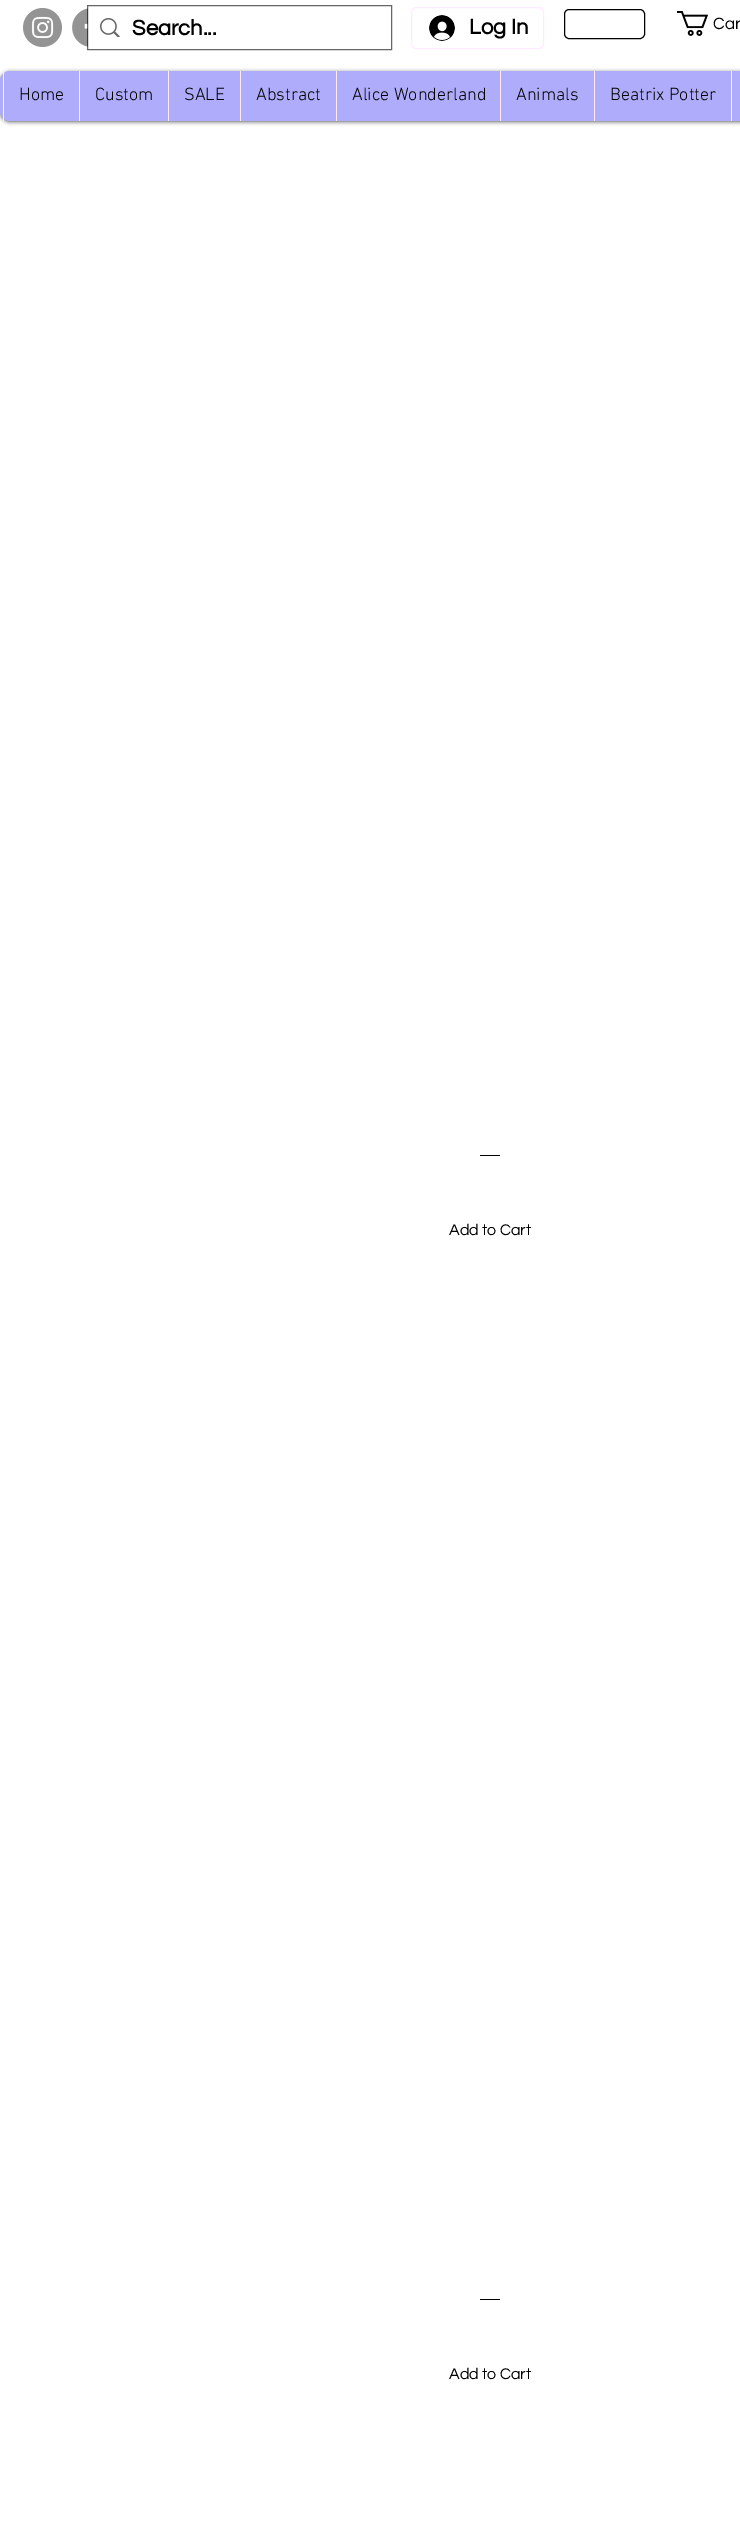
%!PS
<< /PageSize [740 2535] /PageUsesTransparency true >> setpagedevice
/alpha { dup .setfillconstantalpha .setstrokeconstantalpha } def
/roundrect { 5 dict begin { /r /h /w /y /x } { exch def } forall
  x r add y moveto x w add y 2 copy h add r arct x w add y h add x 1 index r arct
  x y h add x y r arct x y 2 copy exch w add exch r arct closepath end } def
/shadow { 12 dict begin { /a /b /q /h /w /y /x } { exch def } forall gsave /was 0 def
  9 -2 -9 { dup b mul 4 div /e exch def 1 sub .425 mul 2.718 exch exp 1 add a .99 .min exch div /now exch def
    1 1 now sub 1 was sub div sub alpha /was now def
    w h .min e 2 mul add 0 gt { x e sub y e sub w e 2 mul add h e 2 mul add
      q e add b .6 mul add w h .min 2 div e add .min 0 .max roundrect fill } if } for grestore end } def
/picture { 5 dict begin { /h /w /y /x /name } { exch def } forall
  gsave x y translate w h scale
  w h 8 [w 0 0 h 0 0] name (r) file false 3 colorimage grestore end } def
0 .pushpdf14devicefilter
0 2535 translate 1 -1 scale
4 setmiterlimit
1 setgray
0 0 740 2535 rectfill
(img1.rgb) 23 8 39 39 picture
(img2.rgb) 72 8 16 39 picture
0.6 alpha
0 setgray
87.5 5.5 304 44 rectstroke
1 alpha
(img3.rgb) 100 18 20 19 picture
/Questrial-Bold [22 0 0 -22 0 0] selectfont
132 35 moveto (Search...) show
1 0.922 1 setrgbcolor
411.5 7.5 132 41 4.5 roundrect stroke
(img4.rgb) 429 15 26 26 picture
0 setgray
469 34 moveto (Log In) show
564.5 9.5 80 29 4.5 roundrect stroke
(img5.rgb) 677 11 32 25 picture
/Questrial-Regular [17 0 0 -17 0 0] selectfont
713 29 moveto (Car) show
0 72 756 50 10 2 0.6 shadow
0.686 0.675 0.984 setrgbcolor
0 71 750 50 10 roundrect fill
1 0.922 1 setrgbcolor
3 71 1 50 rectfill
/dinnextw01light-Light [18 0 0 -18 0 0] selectfont
0 setgray
19 100 moveto (Home) show
1 0.922 1 setrgbcolor
79 71 1 50 rectfill
0 setgray
95 100 moveto (Custom) show
1 0.922 1 setrgbcolor
168 71 1 50 rectfill
0 setgray
184 100 moveto (SALE) show
1 0.922 1 setrgbcolor
240 71 1 50 rectfill
0 setgray
256 100 moveto (Abstract) show
1 0.922 1 setrgbcolor
336 71 1 50 rectfill
0 setgray
352 100 moveto (Alice Wonderland) show
1 0.922 1 setrgbcolor
500 71 1 50 rectfill
0 setgray
516 100 moveto (Animals) show
1 0.922 1 setrgbcolor
594 71 1 50 rectfill
0 setgray
610 100 moveto (Beatrix Potter) show
1 0.922 1 setrgbcolor
731 71 1 50 rectfill
0 setgray
480 1155 20 1 rectfill
/Questrial-Regular [16 0 0 -16 0 0] selectfont
449 1235 moveto (Add to Cart) show
480 2299 20 1 rectfill
449 2379 moveto (Add to Cart) show
.poppdf14devicefilter showpage
